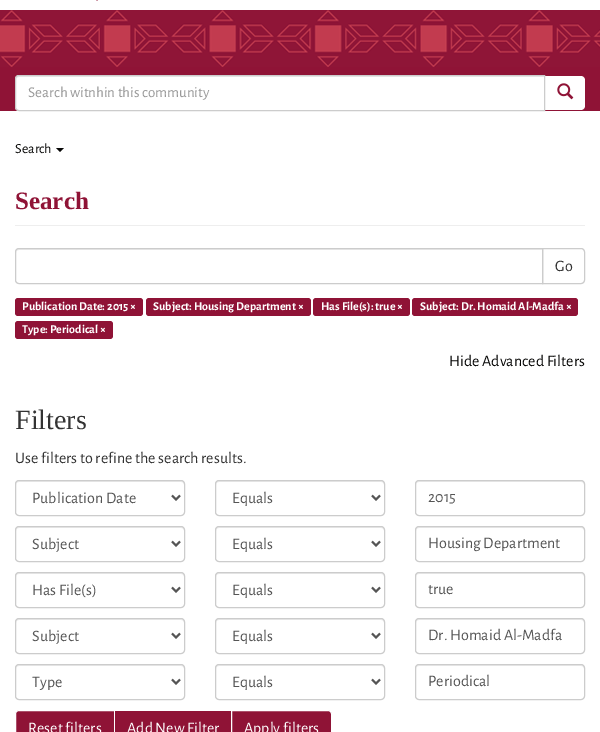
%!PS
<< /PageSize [600 732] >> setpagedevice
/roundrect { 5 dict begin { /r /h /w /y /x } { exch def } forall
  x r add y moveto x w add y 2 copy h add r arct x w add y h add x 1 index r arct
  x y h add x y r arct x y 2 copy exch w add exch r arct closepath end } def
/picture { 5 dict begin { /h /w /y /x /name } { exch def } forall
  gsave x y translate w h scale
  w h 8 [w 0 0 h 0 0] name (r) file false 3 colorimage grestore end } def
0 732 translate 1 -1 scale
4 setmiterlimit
1 setgray
0 0 600 732 rectfill
(img1.rgb) 96 0 2 1 picture
(img2.rgb) 0 10 600 57 picture
0.561 0.075 0.212 setrgbcolor
0 67 600 44 rectfill
1 setgray
newpath 544 76 moveto 581 76 lineto 583 76 585 78 585 80 curveto 585 106 lineto 585 108 583 110 581 110 curveto 544 110 lineto closepath fill
newpath 19 75 moveto 545 75 lineto 545 111 lineto 19 111 lineto 17 111 15 109 15 107 curveto 15 79 lineto 15 77 17 75 19 75 curveto closepath fill
0.925 setgray
newpath 19 77 moveto 544 77 lineto 544 76 lineto 19 76 lineto 17 76 16 78 16 80 curveto 16 78 17 77 19 77 curveto closepath fill
0.8 setgray
newpath 19 75.5 moveto 544.5 75.5 lineto 544.5 110.5 lineto 19 110.5 lineto 17 110.5 15.5 109 15.5 107 curveto 15.5 79 lineto 15.5 77 17 75.5 19 75.5 curveto closepath stroke
/AlegreyaSans-Regular [15 0 0 -15 0 0] selectfont
0.6 setgray
28 97 moveto (Search witnhin this community) show
(img3.rgb) 557 83 17 17 picture
/AlegreyaSans-Regular [14 0 0 -14 0 0] selectfont
0.031 0.031 0.027 setrgbcolor
15 153 moveto (Search) show
newpath 56 148 moveto 64 148 lineto 60 152 lineto closepath fill
0.933 setgray
15 225 570 1 rectfill
/LiberationSerif-Bold [25 0 0 -25 0 0] selectfont
0.561 0.075 0.212 setrgbcolor
15 209 moveto (Search) show
0.8 setgray
newpath 542.5 248.5 moveto 581 248.5 lineto 583 248.5 584.5 250 584.5 252 curveto 584.5 280 lineto 584.5 282 583 283.5 581 283.5 curveto 542.5 283.5 lineto closepath stroke
1 setgray
newpath 19 248 moveto 543 248 lineto 543 284 lineto 19 284 lineto 17 284 15 282 15 280 curveto 15 252 lineto 15 250 17 248 19 248 curveto closepath fill
0.925 setgray
newpath 19 250 moveto 542 250 lineto 542 249 lineto 19 249 lineto 17 249 16 251 16 253 curveto 16 251 17 250 19 250 curveto closepath fill
0.8 setgray
newpath 19 248.5 moveto 542.5 248.5 lineto 542.5 283.5 lineto 19 283.5 lineto 17 283.5 15.5 282 15.5 280 curveto 15.5 252 lineto 15.5 250 17 248.5 19 248.5 curveto closepath stroke
/AlegreyaSans-Regular [16 0 0 -16 0 0] selectfont
0.2 setgray
555 271 moveto (Go) show
0.561 0.075 0.212 setrgbcolor
15 298 128 18 3 roundrect fill
/AlegreyaSans-Bold [12 0 0 -12 0 0] selectfont
1 setgray
22 310 moveto (Publication Date: 2015 ×) show
0.561 0.075 0.212 setrgbcolor
146 298 165 18 3 roundrect fill
1 setgray
153 310 moveto (Subject: Housing Department ×) show
0.561 0.075 0.212 setrgbcolor
313 298 97 18 3 roundrect fill
1 setgray
321 310 moveto (Has File\(s\): true ×) show
0.561 0.075 0.212 setrgbcolor
412 298 166 18 3 roundrect fill
1 setgray
420 310 moveto (Subject: Dr. Homaid Al-Madfa ×) show
0.561 0.075 0.212 setrgbcolor
15 321 98 18 3 roundrect fill
1 setgray
22 333 moveto (Type: Periodical ×) show
/AlegreyaSans-Regular [16 0 0 -16 0 0] selectfont
0.031 0.031 0.027 setrgbcolor
449 366 moveto (Hide Advanced Filters) show
/LiberationSerif-Regular [28 0 0 -28 0 0] selectfont
0.2 setgray
15 429 moveto (Filters) show
/AlegreyaSans-Regular [16 0 0 -16 0 0] selectfont
15 463 moveto (Use filters to refine the search results.) show
0.925 setgray
newpath 19 482 moveto 181 482 lineto 183 482 184 483 184 485 curveto 184 484 lineto 184 482 183 481 181 481 curveto 19 481 lineto 17 481 16 482 16 484 curveto 16 485 lineto 16 483 17 482 19 482 curveto closepath fill
0.8 setgray
15.5 480.5 169 35 3.5 roundrect stroke
0.333 setgray
2 setlinewidth
newpath 172 495.5 moveto 176 499.5 lineto 180 495.5 lineto stroke
32 503 moveto (Publication Date) show
0.925 setgray
newpath 219 482 moveto 381 482 lineto 383 482 384 483 384 485 curveto 384 484 lineto 384 482 383 481 381 481 curveto 219 481 lineto 217 481 216 482 216 484 curveto 216 485 lineto 216 483 217 482 219 482 curveto closepath fill
0.8 setgray
1 setlinewidth
215.5 480.5 169 35 3.5 roundrect stroke
0.333 setgray
2 setlinewidth
newpath 372 495.5 moveto 376 499.5 lineto 380 495.5 lineto stroke
232 503 moveto (Equals) show
0.925 setgray
newpath 419 482 moveto 581 482 lineto 583 482 584 483 584 485 curveto 584 484 lineto 584 482 583 481 581 481 curveto 419 481 lineto 417 481 416 482 416 484 curveto 416 485 lineto 416 483 417 482 419 482 curveto closepath fill
0.8 setgray
1 setlinewidth
415.5 480.5 169 35 3.5 roundrect stroke
0.333 setgray
428 502 moveto (2015) show
0.925 setgray
newpath 19 528 moveto 181 528 lineto 183 528 184 529 184 531 curveto 184 530 lineto 184 528 183 527 181 527 curveto 19 527 lineto 17 527 16 528 16 530 curveto 16 531 lineto 16 529 17 528 19 528 curveto closepath fill
0.8 setgray
15.5 526.5 169 35 3.5 roundrect stroke
0.333 setgray
2 setlinewidth
newpath 172 541.5 moveto 176 545.5 lineto 180 541.5 lineto stroke
32 549 moveto (Subject) show
0.925 setgray
newpath 219 528 moveto 381 528 lineto 383 528 384 529 384 531 curveto 384 530 lineto 384 528 383 527 381 527 curveto 219 527 lineto 217 527 216 528 216 530 curveto 216 531 lineto 216 529 217 528 219 528 curveto closepath fill
0.8 setgray
1 setlinewidth
215.5 526.5 169 35 3.5 roundrect stroke
0.333 setgray
2 setlinewidth
newpath 372 541.5 moveto 376 545.5 lineto 380 541.5 lineto stroke
232 549 moveto (Equals) show
0.925 setgray
newpath 419 528 moveto 581 528 lineto 583 528 584 529 584 531 curveto 584 530 lineto 584 528 583 527 581 527 curveto 419 527 lineto 417 527 416 528 416 530 curveto 416 531 lineto 416 529 417 528 419 528 curveto closepath fill
0.8 setgray
1 setlinewidth
415.5 526.5 169 35 3.5 roundrect stroke
0.333 setgray
428 548 moveto (Housing Department) show
0.925 setgray
newpath 19 574 moveto 181 574 lineto 183 574 184 575 184 577 curveto 184 576 lineto 184 574 183 573 181 573 curveto 19 573 lineto 17 573 16 574 16 576 curveto 16 577 lineto 16 575 17 574 19 574 curveto closepath fill
0.8 setgray
15.5 572.5 169 35 3.5 roundrect stroke
0.333 setgray
2 setlinewidth
newpath 172 587.5 moveto 176 591.5 lineto 180 587.5 lineto stroke
32 595 moveto (Has File\(s\)) show
0.925 setgray
newpath 219 574 moveto 381 574 lineto 383 574 384 575 384 577 curveto 384 576 lineto 384 574 383 573 381 573 curveto 219 573 lineto 217 573 216 574 216 576 curveto 216 577 lineto 216 575 217 574 219 574 curveto closepath fill
0.8 setgray
1 setlinewidth
215.5 572.5 169 35 3.5 roundrect stroke
0.333 setgray
2 setlinewidth
newpath 372 587.5 moveto 376 591.5 lineto 380 587.5 lineto stroke
232 595 moveto (Equals) show
0.925 setgray
newpath 419 574 moveto 581 574 lineto 583 574 584 575 584 577 curveto 584 576 lineto 584 574 583 573 581 573 curveto 419 573 lineto 417 573 416 574 416 576 curveto 416 577 lineto 416 575 417 574 419 574 curveto closepath fill
0.8 setgray
1 setlinewidth
415.5 572.5 169 35 3.5 roundrect stroke
0.333 setgray
428 594 moveto (true) show
0.925 setgray
newpath 19 620 moveto 181 620 lineto 183 620 184 621 184 623 curveto 184 622 lineto 184 620 183 619 181 619 curveto 19 619 lineto 17 619 16 620 16 622 curveto 16 623 lineto 16 621 17 620 19 620 curveto closepath fill
0.8 setgray
15.5 618.5 169 35 3.5 roundrect stroke
0.333 setgray
2 setlinewidth
newpath 172 633.5 moveto 176 637.5 lineto 180 633.5 lineto stroke
32 641 moveto (Subject) show
0.925 setgray
newpath 219 620 moveto 381 620 lineto 383 620 384 621 384 623 curveto 384 622 lineto 384 620 383 619 381 619 curveto 219 619 lineto 217 619 216 620 216 622 curveto 216 623 lineto 216 621 217 620 219 620 curveto closepath fill
0.8 setgray
1 setlinewidth
215.5 618.5 169 35 3.5 roundrect stroke
0.333 setgray
2 setlinewidth
newpath 372 633.5 moveto 376 637.5 lineto 380 633.5 lineto stroke
232 641 moveto (Equals) show
0.925 setgray
newpath 419 620 moveto 581 620 lineto 583 620 584 621 584 623 curveto 584 622 lineto 584 620 583 619 581 619 curveto 419 619 lineto 417 619 416 620 416 622 curveto 416 623 lineto 416 621 417 620 419 620 curveto closepath fill
0.8 setgray
1 setlinewidth
415.5 618.5 169 35 3.5 roundrect stroke
0.333 setgray
428 640 moveto (Dr. Homaid Al-Madfa) show
0.925 setgray
newpath 19 666 moveto 181 666 lineto 183 666 184 667 184 669 curveto 184 668 lineto 184 666 183 665 181 665 curveto 19 665 lineto 17 665 16 666 16 668 curveto 16 669 lineto 16 667 17 666 19 666 curveto closepath fill
0.8 setgray
15.5 664.5 169 35 3.5 roundrect stroke
0.333 setgray
2 setlinewidth
newpath 172 679.5 moveto 176 683.5 lineto 180 679.5 lineto stroke
32 687 moveto (Type) show
0.925 setgray
newpath 219 666 moveto 381 666 lineto 383 666 384 667 384 669 curveto 384 668 lineto 384 666 383 665 381 665 curveto 219 665 lineto 217 665 216 666 216 668 curveto 216 669 lineto 216 667 217 666 219 666 curveto closepath fill
0.8 setgray
1 setlinewidth
215.5 664.5 169 35 3.5 roundrect stroke
0.333 setgray
2 setlinewidth
newpath 372 679.5 moveto 376 683.5 lineto 380 679.5 lineto stroke
232 687 moveto (Equals) show
0.925 setgray
newpath 419 666 moveto 581 666 lineto 583 666 584 667 584 669 curveto 584 668 lineto 584 666 583 665 581 665 curveto 419 665 lineto 417 665 416 666 416 668 curveto 416 669 lineto 416 667 417 666 419 666 curveto closepath fill
0.8 setgray
1 setlinewidth
415.5 664.5 169 35 3.5 roundrect stroke
0.333 setgray
428 686 moveto (Periodical) show
0.561 0.075 0.212 setrgbcolor
newpath 19 710.5 moveto 114.5 710.5 lineto 114.5 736.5 lineto 19 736.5 lineto 17 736.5 15.5 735 15.5 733 curveto 15.5 714 lineto 15.5 712 17 710.5 19 710.5 curveto closepath gsave fill grestore
1 setgray
stroke
28 733 moveto (Reset filters) show
0.561 0.075 0.212 setrgbcolor
115 711 116 21 rectfill
1 setgray
127 733 moveto (Add New Filter) show
0.561 0.075 0.212 setrgbcolor
newpath 231.5 710.5 moveto 328 710.5 lineto 330 710.5 331.5 712 331.5 714 curveto 331.5 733 lineto 331.5 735 330 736.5 328 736.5 curveto 231.5 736.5 lineto closepath gsave fill grestore
1 setgray
stroke
244 733 moveto (Apply filters) show
showpage
